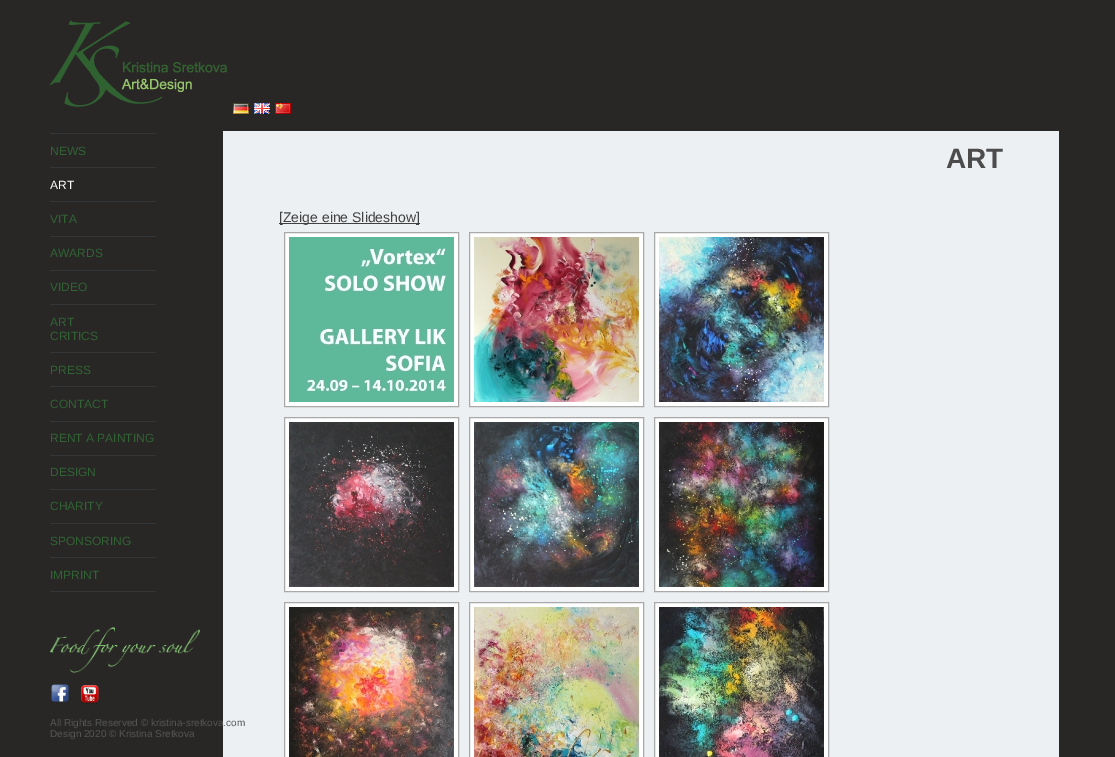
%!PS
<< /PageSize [1115 757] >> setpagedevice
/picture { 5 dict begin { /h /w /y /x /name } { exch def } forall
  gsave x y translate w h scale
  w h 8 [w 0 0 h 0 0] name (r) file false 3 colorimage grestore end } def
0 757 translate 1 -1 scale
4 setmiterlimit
0.157 0.153 0.145 setrgbcolor
0 0 1115 757 rectfill
(img1.rgb) 50 20 177 87 picture
(img2.rgb) 233 103 16 11 picture
(img3.rgb) 254 103 16 11 picture
(img4.rgb) 275 103 16 11 picture
0.2 0.212 0.22 setrgbcolor
50 133 106 1 rectfill
/LiberationSans-Regular [12 0 0 -12 0 0] selectfont
0.192 0.388 0.208 setrgbcolor
50 155 moveto (NEWS) show
0.2 0.212 0.22 setrgbcolor
50 167 106 1 rectfill
1 setgray
50 189 moveto (ART) show
0.2 0.212 0.22 setrgbcolor
50 201 106 1 rectfill
0.192 0.388 0.208 setrgbcolor
50 223 moveto (VITA) show
0.2 0.212 0.22 setrgbcolor
50 236 106 1 rectfill
0.192 0.388 0.208 setrgbcolor
50 257 moveto (AWARDS) show
0.2 0.212 0.22 setrgbcolor
50 270 106 1 rectfill
0.192 0.388 0.208 setrgbcolor
50 291 moveto (VIDEO) show
0.2 0.212 0.22 setrgbcolor
50 304 106 1 rectfill
0.192 0.388 0.208 setrgbcolor
50 326 moveto (ART) show
50 340 moveto (CRITICS) show
0.2 0.212 0.22 setrgbcolor
50 352 106 1 rectfill
0.192 0.388 0.208 setrgbcolor
50 374 moveto (PRESS) show
0.2 0.212 0.22 setrgbcolor
50 386 106 1 rectfill
0.192 0.388 0.208 setrgbcolor
50 408 moveto (CONTACT) show
0.2 0.212 0.22 setrgbcolor
50 421 106 1 rectfill
0.192 0.388 0.208 setrgbcolor
50 442 moveto (RENT A PAINTING) show
0.2 0.212 0.22 setrgbcolor
50 455 106 1 rectfill
0.192 0.388 0.208 setrgbcolor
50 476 moveto (DESIGN) show
0.2 0.212 0.22 setrgbcolor
50 489 106 1 rectfill
0.192 0.388 0.208 setrgbcolor
50 510 moveto (CHARITY) show
0.2 0.212 0.22 setrgbcolor
50 523 106 1 rectfill
0.192 0.388 0.208 setrgbcolor
50 545 moveto (SPONSORING) show
0.2 0.212 0.22 setrgbcolor
50 557 106 1 rectfill
50 591 106 1 rectfill
0.192 0.388 0.208 setrgbcolor
50 579 moveto (IMPRINT) show
(img5.rgb) 50 627 150 46 picture
(img6.rgb) 51 684 18 18 picture
(img7.rgb) 81 685 18 19 picture
0.929 0.941 0.949 setrgbcolor
223 131 836 626 rectfill
/LiberationSans-Regular [10 0 0 -10 0 0] selectfont
0.337 setgray
50 726 moveto (All Rights Reserved © kristina-sretkova.com) show
50 737 moveto (Design 2020 © Kristina Sretkova) show
/LiberationSans-Bold [28 0 0 -28 0 0] selectfont
0.298 setgray
946 168 moveto (ART) show
0.255 0.255 0.259 setrgbcolor
279 223 141 1 rectfill
/LiberationSans-Regular [14 0 0 -14 0 0] selectfont
279 222 moveto ([Zeige eine Slideshow]) show
1 setgray
newpath 284.5 232.5 moveto 458.5 232.5 lineto 458.5 406.5 lineto 284.5 406.5 lineto closepath gsave fill grestore
0.663 setgray
stroke
(img8.rgb) 289 237 165 165 picture
1 setgray
newpath 469.5 232.5 moveto 643.5 232.5 lineto 643.5 406.5 lineto 469.5 406.5 lineto closepath gsave fill grestore
0.663 setgray
stroke
(img9.rgb) 474 237 165 165 picture
1 setgray
newpath 654.5 232.5 moveto 828.5 232.5 lineto 828.5 406.5 lineto 654.5 406.5 lineto closepath gsave fill grestore
0.663 setgray
stroke
(img10.rgb) 659 237 165 165 picture
1 setgray
newpath 284.5 417.5 moveto 458.5 417.5 lineto 458.5 591.5 lineto 284.5 591.5 lineto closepath gsave fill grestore
0.663 setgray
stroke
(img11.rgb) 289 422 165 165 picture
1 setgray
newpath 469.5 417.5 moveto 643.5 417.5 lineto 643.5 591.5 lineto 469.5 591.5 lineto closepath gsave fill grestore
0.663 setgray
stroke
(img12.rgb) 474 422 165 165 picture
1 setgray
newpath 654.5 417.5 moveto 828.5 417.5 lineto 828.5 591.5 lineto 654.5 591.5 lineto closepath gsave fill grestore
0.663 setgray
stroke
(img13.rgb) 659 422 165 165 picture
1 setgray
newpath 284.5 602.5 moveto 458.5 602.5 lineto 458.5 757.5 lineto 284.5 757.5 lineto closepath gsave fill grestore
0.663 setgray
stroke
(img14.rgb) 289 607 165 150 picture
1 setgray
newpath 469.5 602.5 moveto 643.5 602.5 lineto 643.5 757.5 lineto 469.5 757.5 lineto closepath gsave fill grestore
0.663 setgray
stroke
(img15.rgb) 474 607 165 150 picture
1 setgray
newpath 654.5 602.5 moveto 828.5 602.5 lineto 828.5 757.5 lineto 654.5 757.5 lineto closepath gsave fill grestore
0.663 setgray
stroke
(img16.rgb) 659 607 165 150 picture
showpage
